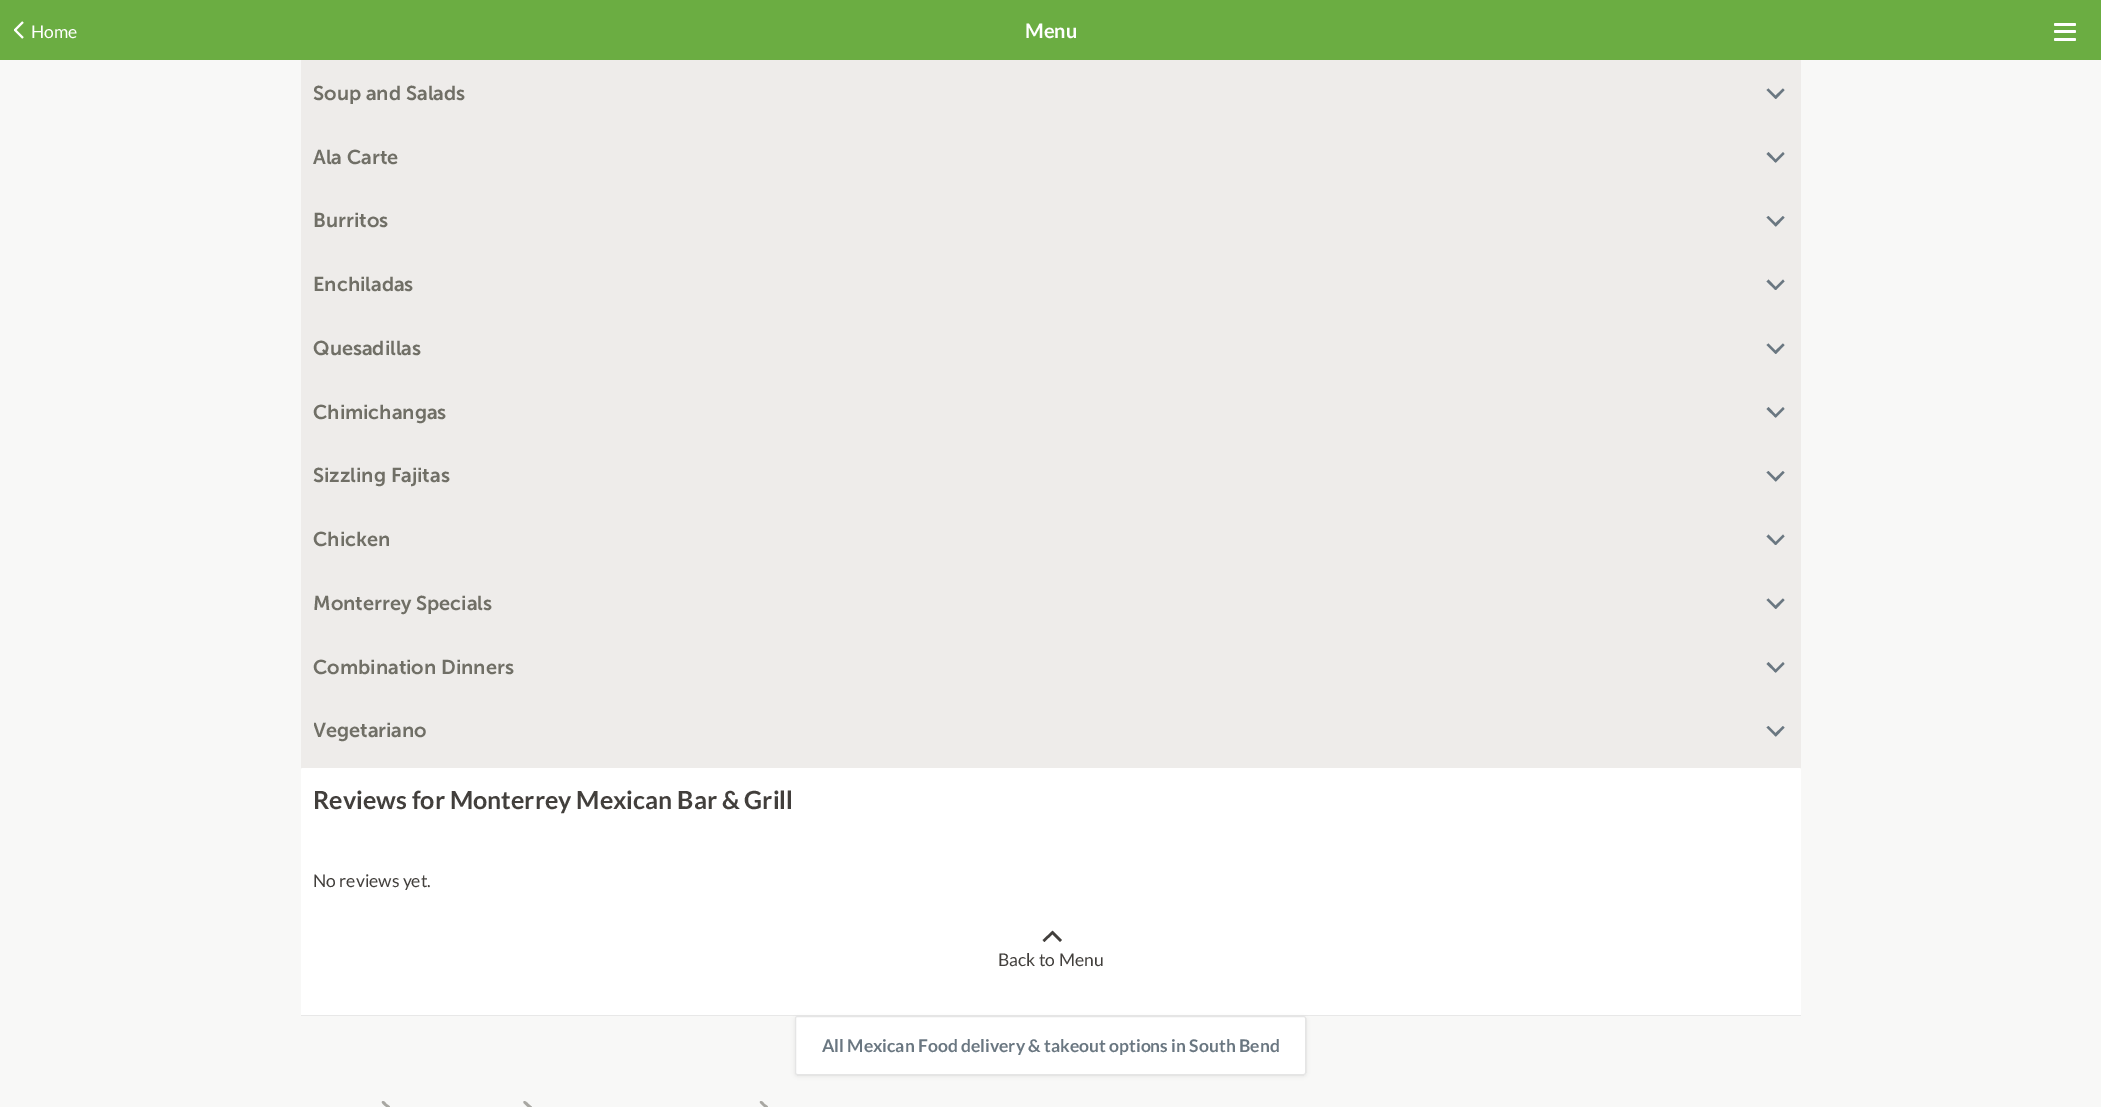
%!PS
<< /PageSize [2101 1107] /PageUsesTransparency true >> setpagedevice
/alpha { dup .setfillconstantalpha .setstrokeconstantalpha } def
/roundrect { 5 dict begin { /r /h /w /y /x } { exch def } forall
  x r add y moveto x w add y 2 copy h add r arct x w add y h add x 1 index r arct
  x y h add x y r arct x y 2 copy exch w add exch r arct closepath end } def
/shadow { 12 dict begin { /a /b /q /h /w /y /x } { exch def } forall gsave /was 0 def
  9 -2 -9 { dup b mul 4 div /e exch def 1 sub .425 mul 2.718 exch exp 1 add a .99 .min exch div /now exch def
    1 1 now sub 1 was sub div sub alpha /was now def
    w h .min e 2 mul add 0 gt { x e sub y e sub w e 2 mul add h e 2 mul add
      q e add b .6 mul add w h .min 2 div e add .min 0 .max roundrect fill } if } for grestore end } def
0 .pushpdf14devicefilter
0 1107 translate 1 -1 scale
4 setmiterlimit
0.973 0.973 0.969 setrgbcolor
0 0 2101 1107 rectfill
0.42 0.678 0.259 setrgbcolor
0 0 2101 60 rectfill
1 setgray
newpath 14.5 29 moveto 21.5 22 lineto 22 21.5 22.5 21.5 23 22 curveto 23.5 22.5 23.5 23 23 23.5 curveto 16 30.5 lineto 15.5 31 15 31 14.5 30.5 curveto 14 30 14 29.5 14.5 29 curveto closepath fill
/Lato-Regular [17.5 0 0 -17.5 0 0] selectfont
31 38 moveto (Home) show
newpath 16 29.5 moveto 23 36.5 lineto 23.5 37 23.5 37.5 23 38 curveto 22.5 38.5 22 38.5 21.5 38 curveto 14.5 31 lineto 14 30.5 14 30 14.5 29.5 curveto 15 29 15.5 29 16 29.5 curveto closepath fill
/Lato-Bold [20 0 0 -20 0 0] selectfont
1025 38 moveto (Menu) show
2054 30 22 3 1.5 roundrect fill
2054 23 22 3 1.5 roundrect fill
2054 38 22 3 1.5 roundrect fill
0.933 0.925 0.918 setrgbcolor
301 60 1500 708 rectfill
/MuseoSans-SemiBold [20 0 0 -20 0 0] selectfont
0.439 0.435 0.4 setrgbcolor
313 100 moveto (Soup and Salads) show
0.416 0.467 0.506 setrgbcolor
newpath 1766.5 90 moveto 1768.5 88.5 lineto 1777 97 lineto 1775.5 99 lineto closepath fill
newpath 1783 88.5 moveto 1784.5 90 lineto 1776 99 lineto 1774 97 lineto closepath fill
0.439 0.435 0.4 setrgbcolor
313 164 moveto (Ala Carte) show
0.416 0.467 0.506 setrgbcolor
newpath 1766.5 154 moveto 1768.5 152 lineto 1777 161 lineto 1775.5 162.5 lineto closepath fill
newpath 1783 152 moveto 1784.5 154 lineto 1776 162.5 lineto 1774 161 lineto closepath fill
0.439 0.435 0.4 setrgbcolor
313 227 moveto (Burritos) show
0.416 0.467 0.506 setrgbcolor
newpath 1766.5 217.5 moveto 1768.5 216 lineto 1777 224.5 lineto 1775.5 226.5 lineto closepath fill
newpath 1783 216 moveto 1784.5 217.5 lineto 1776 226.5 lineto 1774 224.5 lineto closepath fill
0.439 0.435 0.4 setrgbcolor
313 291 moveto (Enchiladas) show
0.416 0.467 0.506 setrgbcolor
newpath 1766.5 281.5 moveto 1768.5 279.5 lineto 1777 288.5 lineto 1775.5 290 lineto closepath fill
newpath 1783 279.5 moveto 1784.5 281.5 lineto 1776 290 lineto 1774 288.5 lineto closepath fill
0.439 0.435 0.4 setrgbcolor
313 355 moveto (Quesadillas) show
0.416 0.467 0.506 setrgbcolor
newpath 1766.5 345 moveto 1768.5 343.5 lineto 1777 352 lineto 1775.5 354 lineto closepath fill
newpath 1783 343.5 moveto 1784.5 345 lineto 1776 354 lineto 1774 352 lineto closepath fill
0.439 0.435 0.4 setrgbcolor
313 419 moveto (Chimichangas) show
0.416 0.467 0.506 setrgbcolor
newpath 1766.5 409 moveto 1768.5 407 lineto 1777 416 lineto 1775.5 417.5 lineto closepath fill
newpath 1783 407 moveto 1784.5 409 lineto 1776 417.5 lineto 1774 416 lineto closepath fill
0.439 0.435 0.4 setrgbcolor
313 482 moveto (Sizzling Fajitas) show
0.416 0.467 0.506 setrgbcolor
newpath 1766.5 472.5 moveto 1768.5 471 lineto 1777 479.5 lineto 1775.5 481.5 lineto closepath fill
newpath 1783 471 moveto 1784.5 472.5 lineto 1776 481.5 lineto 1774 479.5 lineto closepath fill
0.439 0.435 0.4 setrgbcolor
313 546 moveto (Chicken) show
0.416 0.467 0.506 setrgbcolor
newpath 1766.5 536.5 moveto 1768.5 534.5 lineto 1777 543.5 lineto 1775.5 545 lineto closepath fill
newpath 1783 534.5 moveto 1784.5 536.5 lineto 1776 545 lineto 1774 543.5 lineto closepath fill
0.439 0.435 0.4 setrgbcolor
313 610 moveto (Monterrey Specials) show
0.416 0.467 0.506 setrgbcolor
newpath 1766.5 600 moveto 1768.5 598.5 lineto 1777 607 lineto 1775.5 609 lineto closepath fill
newpath 1783 598.5 moveto 1784.5 600 lineto 1776 609 lineto 1774 607 lineto closepath fill
0.439 0.435 0.4 setrgbcolor
313 674 moveto (Combination Dinners) show
0.416 0.467 0.506 setrgbcolor
newpath 1766.5 664 moveto 1768.5 662 lineto 1777 671 lineto 1775.5 672.5 lineto closepath fill
newpath 1783 662 moveto 1784.5 664 lineto 1776 672.5 lineto 1774 671 lineto closepath fill
gsave
314 716 114 30 rectclip
0.439 0.435 0.4 setrgbcolor
313 737 moveto (Vegetariano) show
grestore
newpath 1766.5 727.5 moveto 1768.5 726 lineto 1777 734.5 lineto 1775.5 736.5 lineto closepath fill
newpath 1783 726 moveto 1784.5 727.5 lineto 1776 736.5 lineto 1774 734.5 lineto closepath fill
1 setgray
301 768 1500 248 2.5 roundrect fill
/Lato-Bold [25 0 0 -25 0 0] selectfont
0.259 0.247 0.235 setrgbcolor
313 809 moveto (Reviews for Monterrey Mexican Bar & Grill) show
0.91 setgray
301 1015 1500 1 rectfill
/Lato-Regular [17.5 0 0 -17.5 0 0] selectfont
0.259 0.247 0.235 setrgbcolor
313 887 moveto (No reviews yet.) show
2.5 setlinewidth
newpath 1043.5 941 moveto 1052.5 932.5 lineto 1061 941 lineto stroke
998 966 moveto (Back to Menu) show
0 setgray
795 1018 511 58 2.5 2 0.08 shadow
1 setgray
795 1016 511 59 2.5 roundrect fill
0.1 alpha
0 setgray
1 setlinewidth
795.5 1016.5 510 58 2 roundrect stroke
/Lato-Bold [17.5 0 0 -17.5 0 0] selectfont
1 alpha
0.416 0.467 0.506 setrgbcolor
822 1052 moveto (All Mexican Food delivery & takeout options in South Bend) show
0.659 0.655 0.635 setrgbcolor
newpath 382 1101.5 moveto 383.5 1100 386 1103 386.5 1104 curveto 387.5 1104.5 391 1106.5 389.5 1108 curveto 388.5 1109.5 386 1106.5 385 1106 curveto 384 1105 381 1103 382 1101.5 curveto closepath fill
newpath 389.5 1106.5 moveto 391 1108 387.5 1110 386.5 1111 curveto 386 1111.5 383.5 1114.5 382 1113 curveto 381 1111.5 384 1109.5 385 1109 curveto 386 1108 388.5 1105 389.5 1106.5 curveto closepath fill
newpath 523.5 1101.5 moveto 525 1100 527.5 1103 528.5 1104 curveto 529 1104.5 532.5 1106.5 531.5 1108 curveto 530 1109.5 527.5 1106.5 526.5 1106 curveto 526 1105 522.5 1103 523.5 1101.5 curveto closepath fill
newpath 531.5 1106.5 moveto 532.5 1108 529 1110 528.5 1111 curveto 527.5 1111.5 525 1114.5 523.5 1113 curveto 522.5 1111.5 526 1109.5 526.5 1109 curveto 527.5 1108 530 1105 531.5 1106.5 curveto closepath fill
newpath 760 1101.5 moveto 761.5 1100 764 1103 764.5 1104 curveto 765.5 1104.5 769 1106.5 767.5 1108 curveto 766.5 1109.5 764 1106.5 763 1106 curveto 762.5 1105 759 1103 760 1101.5 curveto closepath fill
newpath 767.5 1106.5 moveto 769 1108 765.5 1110 764.5 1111 curveto 764 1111.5 761.5 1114.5 760 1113 curveto 759 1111.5 762.5 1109.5 763 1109 curveto 764 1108 766.5 1105 767.5 1106.5 curveto closepath fill
.poppdf14devicefilter showpage
